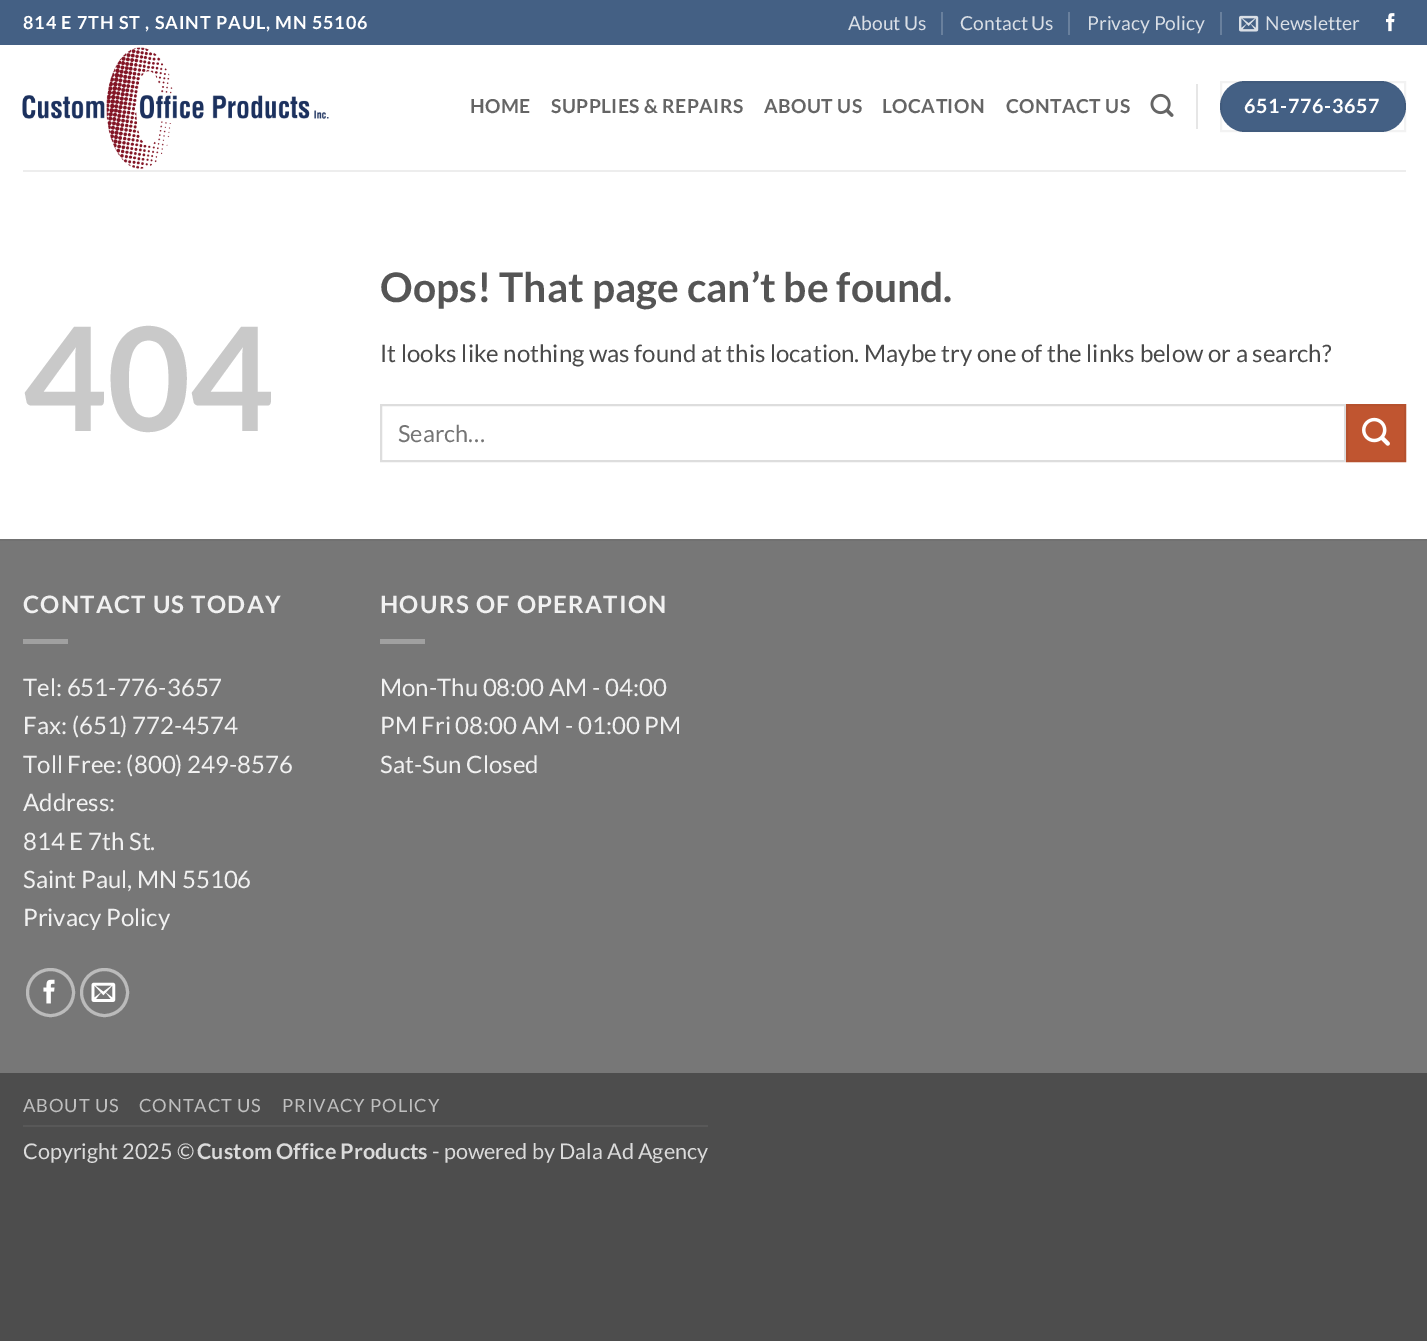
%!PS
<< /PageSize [1427 1341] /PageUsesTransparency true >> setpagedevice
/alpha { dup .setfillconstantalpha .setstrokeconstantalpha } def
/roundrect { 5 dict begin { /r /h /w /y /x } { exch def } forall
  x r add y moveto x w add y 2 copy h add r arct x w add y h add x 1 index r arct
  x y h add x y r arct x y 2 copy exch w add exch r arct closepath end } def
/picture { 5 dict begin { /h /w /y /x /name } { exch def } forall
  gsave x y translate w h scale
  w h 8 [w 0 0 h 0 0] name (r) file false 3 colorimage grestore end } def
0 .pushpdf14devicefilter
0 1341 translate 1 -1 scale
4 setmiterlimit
0.302 setgray
0 0 1427 1341 rectfill
1 setgray
0 45 1427 494 rectfill
0.267 0.376 0.518 setrgbcolor
0 0 1427 45 rectfill
/Lato-Bold [18 0 0 -18 0 0] selectfont
1 setgray
23 29 moveto 0.9 0 (814 E 7TH ST , SAINT PAUL, MN 55106) ashow
/Lato-Regular [19.25 0 0 -19.25 0 0] selectfont
0.855 0.875 0.902 setrgbcolor
848 30 moveto (About Us) show
0.412 0.502 0.616 setrgbcolor
941 12 2 23 rectfill
0.855 0.875 0.902 setrgbcolor
960 30 moveto (Contact Us) show
0.412 0.502 0.616 setrgbcolor
1068 12 2 23 rectfill
0.855 0.875 0.902 setrgbcolor
1087 30 moveto (Privacy Policy) show
0.412 0.502 0.616 setrgbcolor
1220 12 2 23 rectfill
(img1.rgb) 1239 15 20 17 picture
0.855 0.875 0.902 setrgbcolor
1265 30 moveto (Newsletter) show
(img2.rgb) 1386 13 9 19 picture
(img3.rgb) 22 47 307 122 picture
/Lato-Bold [19.25 0 0 -19.25 0 0] selectfont
0.396 setgray
470 113 moveto 0.4 0 (HOME) ashow
551 113 moveto 0.4 0 (SUPPLIES & REPAIRS) ashow
764 113 moveto 0.4 0 (ABOUT US) ashow
882 113 moveto 0.4 0 (LOCATION) ashow
1006 113 moveto 0.4 0 (CONTACT US) ashow
(img4.rgb) 1150 93 24 24 picture
0.902 setgray
1196 84 2 45 rectfill
0.267 0.376 0.518 setrgbcolor
1220 81 186 51 25.5 roundrect fill
0.05 alpha
0 setgray
2 setlinewidth
1221 82 184 49 rectstroke
/Lato-Bold [19.75 0 0 -19.75 0 0] selectfont
1 alpha
1 setgray
1244 113 moveto 0.6 0 (651-776-3657) ashow
0.929 setgray
23 170 1383 2 rectfill
/Lato-Bold [144 0 0 -144 0 0] selectfont
0.788 setgray
23 431 moveto (404) show
/Lato-Bold [40.75 0 0 -40.75 0 0] selectfont
0.333 setgray
380 302 moveto (Oops! That page can’t be found.) show
/Lato-Regular [24 0 0 -24 0 0] selectfont
0.29 setgray
380 362 moveto (It looks like nothing was found at this location. Maybe try one of the links below or a search?) show
0.867 setgray
381 405 964 56 rectstroke
/Lato-Regular [23.5 0 0 -23.5 0 0] selectfont
0.459 setgray
398 442 moveto (Search…) show
0.753 0.333 0.188 setrgbcolor
newpath 1347 405 moveto 1405 405 lineto 1405 461 lineto 1347 461 lineto closepath gsave fill grestore
0.714 0.318 0.18 setrgbcolor
stroke
(img5.rgb) 1362 417 28 29 picture
0.467 setgray
0 541 1427 532 rectfill
0.443 setgray
0 539 1427 2 rectfill
/Lato-Bold [24 0 0 -24 0 0] selectfont
0.945 setgray
23 613 moveto 1.25 0 (CONTACT US TODAY) ashow
0.627 setgray
23 639 45 5 rectfill
/Lato-Regular [24 0 0 -24 0 0] selectfont
0.945 setgray
23 696 moveto (Tel: 651-776-3657) show
23 734 moveto (Fax: \(651\) 772-4574) show
23 773 moveto (Toll Free: \(800\) 249-8576) show
23 811 moveto (Address:) show
23 850 moveto (814 E 7th St.) show
23 888 moveto (Saint Paul, MN 55106) show
23 926 moveto (Privacy Policy) show
0.733 setgray
3 setlinewidth
newpath 50.5 992.5 23 0 360 arc closepath stroke
(img6.rgb) 43 979 12 25 picture
newpath 104.5 992.5 23 0 360 arc closepath stroke
(img7.rgb) 91 982 25 20 picture
/Lato-Bold [24 0 0 -24 0 0] selectfont
0.945 setgray
380 613 moveto 1.25 0 (HOURS OF OPERATION) ashow
0.627 setgray
380 639 45 5 rectfill
/Lato-Regular [24 0 0 -24 0 0] selectfont
0.945 setgray
380 696 moveto (Mon-Thu 08:00 AM - 04:00) show
380 734 moveto (PM Fri 08:00 AM - 01:00 PM) show
380 773 moveto (Sat-Sun Closed) show
0.345 setgray
23 1125 685 2 rectfill
/Lato-Regular [18.25 0 0 -18.25 0 0] selectfont
0.749 setgray
23 1112 moveto 0.9 0 (ABOUT US) ashow
139 1112 moveto 0.9 0 (CONTACT US) ashow
282 1112 moveto 0.9 0 (PRIVACY POLICY) ashow
/Lato-Regular [21.6 0 0 -21.6 0 0] selectfont
0.859 setgray
23 1159 moveto (Copyright 2025 ©) show
/Lato-Bold [21.6 0 0 -21.6 0 0] selectfont
197 1159 moveto (Custom Office Products) show
/Lato-Regular [21.6 0 0 -21.6 0 0] selectfont
432 1159 moveto (- powered by Dala Ad Agency) show
.poppdf14devicefilter showpage
